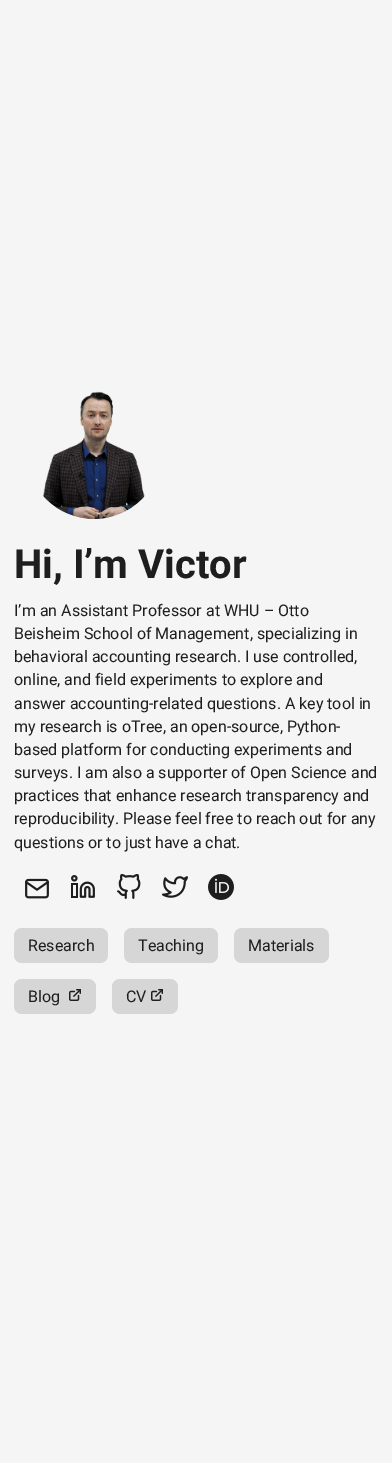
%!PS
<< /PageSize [392 1463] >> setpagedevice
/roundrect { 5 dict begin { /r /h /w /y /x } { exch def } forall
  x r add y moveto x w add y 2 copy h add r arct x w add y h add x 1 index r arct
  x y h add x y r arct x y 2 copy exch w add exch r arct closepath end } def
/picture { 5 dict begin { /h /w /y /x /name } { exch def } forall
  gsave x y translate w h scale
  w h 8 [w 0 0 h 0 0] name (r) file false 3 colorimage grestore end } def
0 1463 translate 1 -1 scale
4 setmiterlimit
0.961 setgray
0 0 392 1463 rectfill
(img1.rgb) 43 391 102 128 picture
/Roboto-Bold [40 0 0 -40 0 0] selectfont
0.118 setgray
14 578 moveto (Hi, I’m Victor) show
/Roboto-Regular [16 0 0 -16 0 0] selectfont
14 616 moveto (I’m an Assistant Professor at WHU – Otto) show
14 639 moveto (Beisheim School of Management, specializing in) show
14 662 moveto (behavioral accounting research. I use controlled,) show
14 685 moveto (online, and field experiments to explore and) show
14 709 moveto (answer accounting-related questions. A key tool in) show
14 732 moveto (my research is oTree, an open-source, Python-) show
14 755 moveto (based platform for conducting experiments and) show
14 778 moveto (surveys. I am also a supporter of Open Science and) show
14 801 moveto (practices that enhance research transparency and) show
14 824 moveto (reproducibility. Please feel free to reach out for any) show
14 848 moveto (questions or to just have a chat.) show
(img2.rgb) 25 878 24 21 picture
(img3.rgb) 71 875 24 23 picture
(img4.rgb) 117 874 24 25 picture
(img5.rgb) 162 876 26 22 picture
(img6.rgb) 208 874 26 26 picture
0.839 setgray
14 928 94 35 8 roundrect fill
0.118 setgray
28 951 moveto (Research) show
0.839 setgray
124 928 94 35 8 roundrect fill
0.118 setgray
138 951 moveto (Teaching) show
0.839 setgray
234 928 95 35 8 roundrect fill
0.118 setgray
248 951 moveto (Materials) show
0.839 setgray
14 979 82 35 8 roundrect fill
0.118 setgray
28 1002 moveto (Blog) show
(img7.rgb) 69 989 12 12 picture
0.839 setgray
112 979 66 35 8 roundrect fill
0.118 setgray
126 1002 moveto (CV) show
(img7.rgb) 151 989 12 12 picture
showpage
